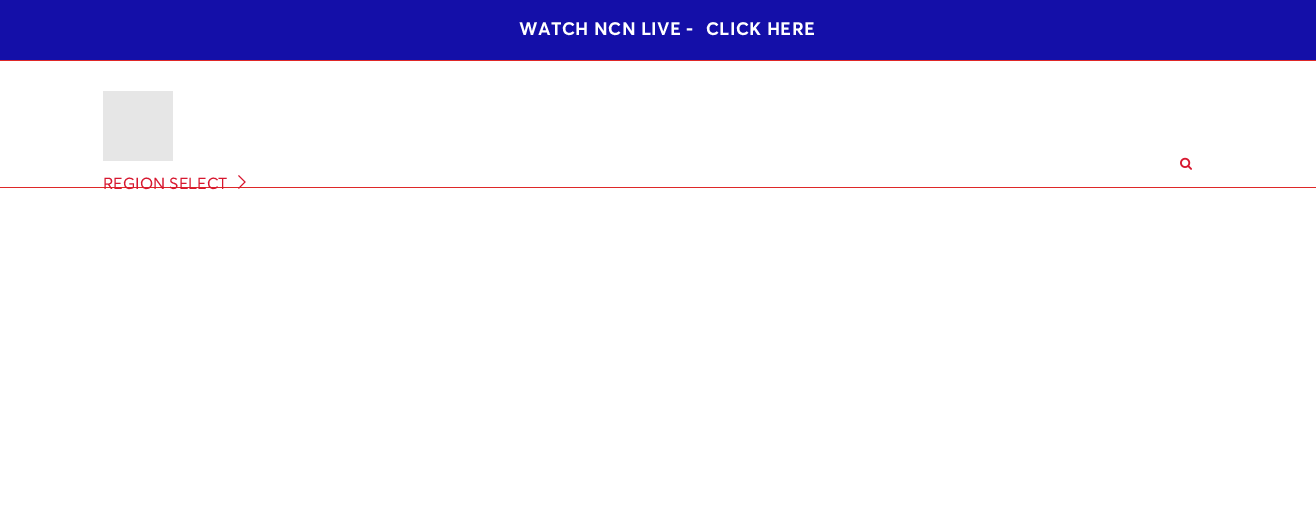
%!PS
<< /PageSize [1316 514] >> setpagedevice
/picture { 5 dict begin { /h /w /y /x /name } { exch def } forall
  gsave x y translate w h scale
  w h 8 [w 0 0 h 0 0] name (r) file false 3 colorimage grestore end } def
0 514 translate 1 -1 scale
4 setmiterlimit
1 setgray
0 0 1316 514 rectfill
0.078 0.059 0.659 setrgbcolor
0 0 1316 60 rectfill
/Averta-Bold [18 0 0 -18 0 0] selectfont
1 setgray
519 35 moveto 0.4 0 (WATCH NCN LIVE -) ashow
706 35 moveto 0.4 0 (CLICK HERE) ashow
0.871 0.157 0.157 setrgbcolor
0 60 1316 1 rectfill
0 187 1316 1 rectfill
(img1.rgb) 1180 157 12 13 picture
0.902 setgray
103 91 70 70 rectfill
/Averta-Regular [16 0 0 -16 0 0] selectfont
0.843 0.09 0.184 setrgbcolor
103 189 moveto (REGION SELECT) show
newpath 238.5 175.5 moveto 245 182 lineto 238.5 188.5 lineto stroke
showpage
